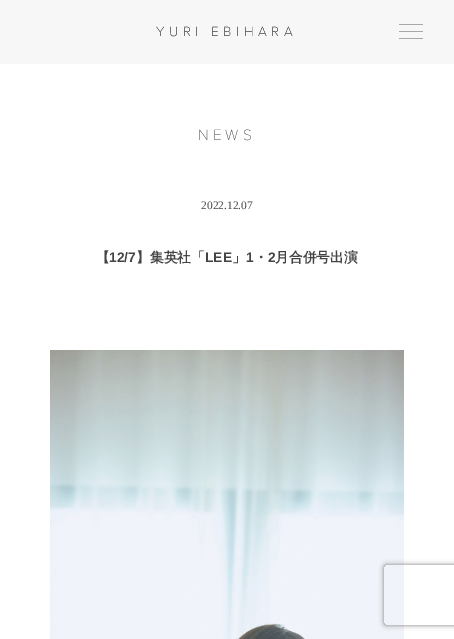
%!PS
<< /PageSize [454 639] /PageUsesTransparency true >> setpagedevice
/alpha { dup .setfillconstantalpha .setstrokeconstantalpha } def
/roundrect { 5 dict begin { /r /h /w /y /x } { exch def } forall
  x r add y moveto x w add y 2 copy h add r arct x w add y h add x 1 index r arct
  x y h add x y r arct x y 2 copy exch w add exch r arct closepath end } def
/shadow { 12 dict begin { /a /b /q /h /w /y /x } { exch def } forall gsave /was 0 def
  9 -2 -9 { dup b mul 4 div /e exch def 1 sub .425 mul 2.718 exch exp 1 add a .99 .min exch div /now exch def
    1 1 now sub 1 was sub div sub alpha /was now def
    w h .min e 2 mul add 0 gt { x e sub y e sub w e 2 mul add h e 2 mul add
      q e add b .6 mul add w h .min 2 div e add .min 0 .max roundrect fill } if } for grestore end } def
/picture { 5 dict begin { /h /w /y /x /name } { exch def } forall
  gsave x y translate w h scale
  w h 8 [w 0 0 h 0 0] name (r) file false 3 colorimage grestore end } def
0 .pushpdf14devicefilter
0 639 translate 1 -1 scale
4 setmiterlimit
1 setgray
0 0 454 639 rectfill
0.969 setgray
0 0 454 64 rectfill
/ProximaNova-Thin [13.75 0 0 -13.75 0 0] selectfont
0 setgray
156 36 moveto 4.6 0 (YURI EBIHARA) ashow
0.659 setgray
399 24 24 1 rectfill
399 31 24 1 rectfill
399 38 24 1 rectfill
/ProximaNova-Thin [15.5 0 0 -15.5 0 0] selectfont
0.267 setgray
198 140 moveto 4 0 (NEWS) ashow
/LiberationSerif-Regular [11.5 0 0 -11.5 0 0] selectfont
201 209 moveto (2022.12.07) show
/WenQuanYiZenHei-Bold [13.75 0 0 -13.75 0 0] selectfont
96 262 moveto (【) show
/LiberationSans-Bold [13.75 0 0 -13.75 0 0] selectfont
109 262 moveto (12/7) show
/WenQuanYiZenHei-Bold [13.75 0 0 -13.75 0 0] selectfont
136 262 moveto (】集英社「) show
/LiberationSans-Bold [13.75 0 0 -13.75 0 0] selectfont
205 262 moveto (LEE) show
/WenQuanYiZenHei-Bold [13.75 0 0 -13.75 0 0] selectfont
232 262 moveto (」) show
/LiberationSans-Bold [13.75 0 0 -13.75 0 0] selectfont
246 262 moveto (1) show
/WenQuanYiZenHei-Bold [13.75 0 0 -13.75 0 0] selectfont
254 262 moveto (・) show
/LiberationSans-Bold [13.75 0 0 -13.75 0 0] selectfont
268 262 moveto (2) show
/WenQuanYiZenHei-Bold [13.75 0 0 -13.75 0 0] selectfont
275 262 moveto (月合併号出演) show
(img1.rgb) 50 350 354 289 picture
gsave
newpath 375 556 moveto 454 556 lineto 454 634 lineto 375 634 lineto closepath 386 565 moveto 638 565 lineto 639 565 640 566 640 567 curveto 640 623 lineto 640 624 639 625 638 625 curveto 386 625 lineto 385 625 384 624 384 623 curveto 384 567 lineto 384 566 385 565 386 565 curveto closepath eoclip newpath
0.502 setgray
384 565 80 60 2 2.5 1 shadow
grestore
.poppdf14devicefilter showpage
